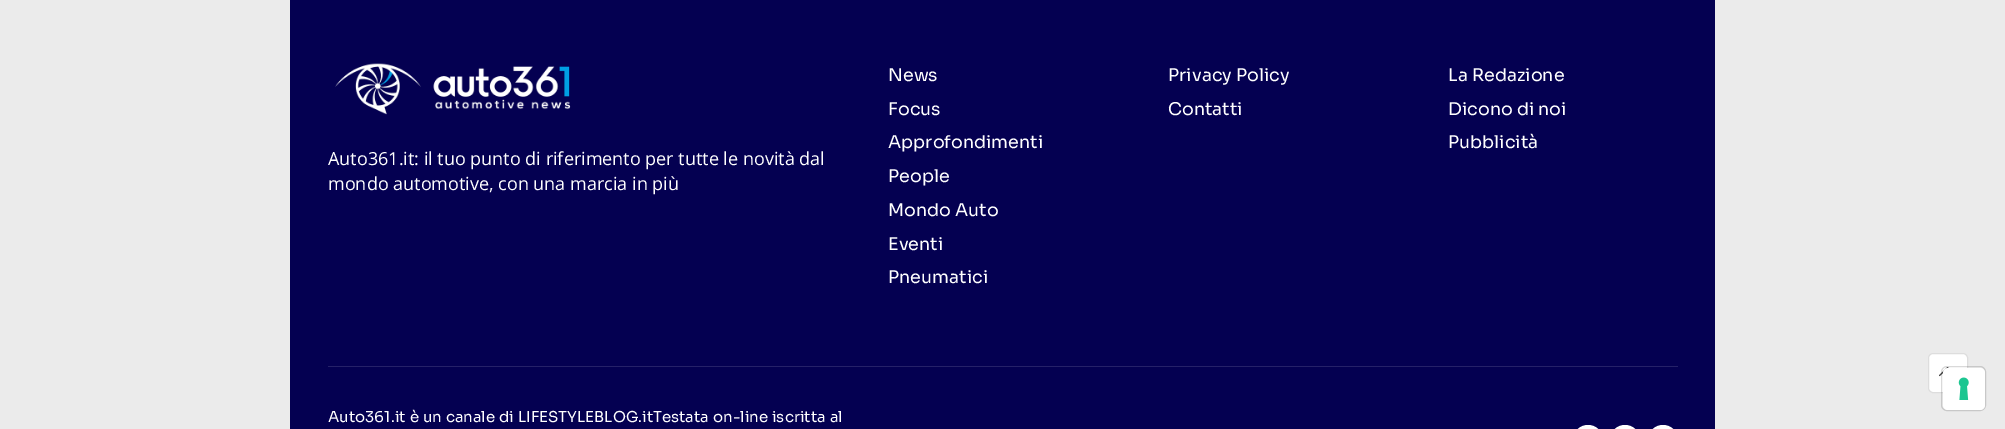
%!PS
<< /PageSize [2005 429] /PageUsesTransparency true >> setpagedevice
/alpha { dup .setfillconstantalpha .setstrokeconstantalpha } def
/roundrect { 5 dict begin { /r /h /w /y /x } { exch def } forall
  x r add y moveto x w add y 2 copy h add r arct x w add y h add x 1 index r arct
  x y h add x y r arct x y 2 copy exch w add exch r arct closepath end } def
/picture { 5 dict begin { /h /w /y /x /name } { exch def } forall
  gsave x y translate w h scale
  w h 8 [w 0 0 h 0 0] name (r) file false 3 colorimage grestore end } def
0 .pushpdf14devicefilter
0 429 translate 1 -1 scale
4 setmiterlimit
0.922 setgray
0 0 2005 429 rectfill
0.016 0 0.318 setrgbcolor
290 0 1425 429 rectfill
/Sora-Regular [17.5 0 0 -17.5 0 0] selectfont
1 setgray
888 81 moveto (News) show
888 115 moveto (Focus) show
888 148 moveto (Approfondimenti) show
888 182 moveto (People) show
888 216 moveto (Mondo Auto) show
888 250 moveto (Eventi) show
888 283 moveto (Pneumatici) show
1168 81 moveto (Privacy Policy) show
1168 115 moveto (Contatti) show
1448 81 moveto (La Redazione) show
1448 115 moveto (Dicono di noi) show
1448 148 moveto (Pubblicità) show
(img1.rgb) 335 63 236 52 picture
/OpenSans-Regular [18 0 0 -18 0 0] selectfont
328 165 moveto (Auto361.it: il tuo punto di riferimento per tutte le novità dal) show
328 190 moveto (mondo automotive, con una marcia in più) show
0.145 0.129 0.408 setrgbcolor
328 366 1350 1 rectfill
/Sora-Regular [15 0 0 -15 0 0] selectfont
1 setgray
328 422 moveto 0.5 0 32 (Auto361.it è un canale di LIFESTYLEBLOG.itTestata on-line iscritta al) widthshow
1573 425 30 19 15 roundrect fill
1610 425 30 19 15 roundrect fill
1648 425 30 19 15 roundrect fill
1928.5 353.5 39 39 4.5 roundrect gsave fill grestore
0.867 setgray
stroke
(img2.rgb) 1939 367 10 10 picture
0.15 alpha
0 setgray
1941.5 366.5 44 44 5.5 roundrect stroke
1 alpha
1 setgray
1943 368 42 42 5 roundrect fill
(img3.rgb) 1958 377 11 23 picture
.poppdf14devicefilter showpage
